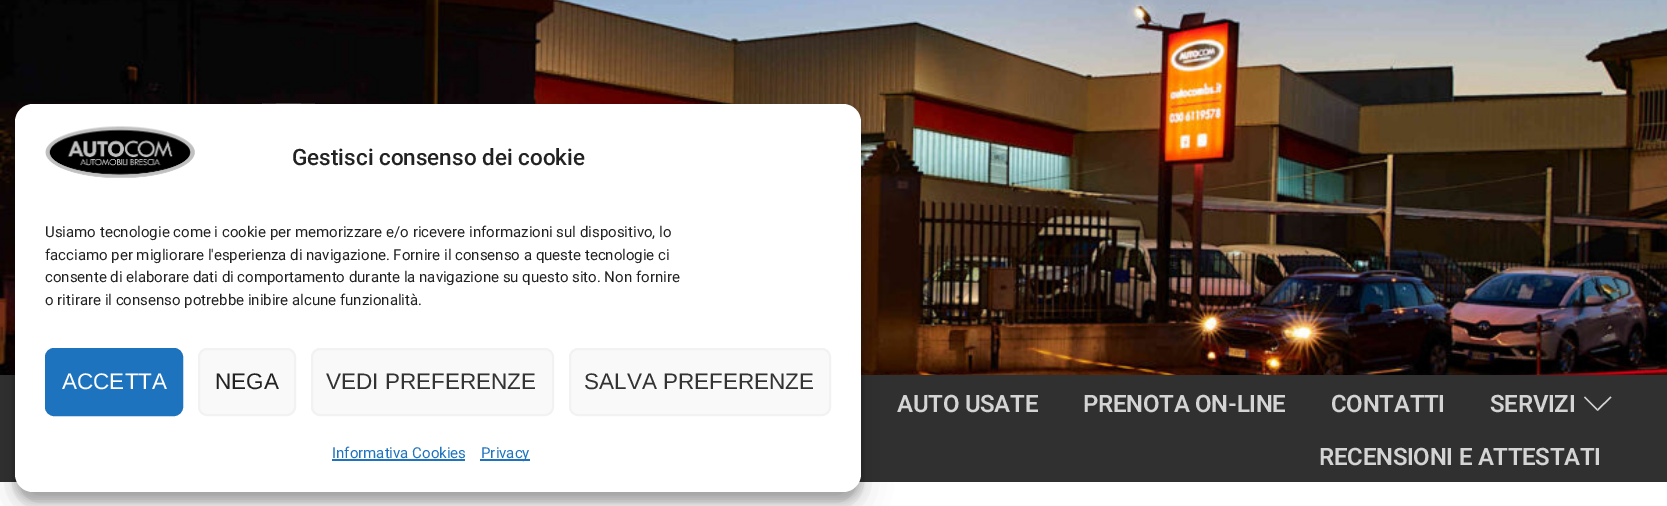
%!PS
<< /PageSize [1667 506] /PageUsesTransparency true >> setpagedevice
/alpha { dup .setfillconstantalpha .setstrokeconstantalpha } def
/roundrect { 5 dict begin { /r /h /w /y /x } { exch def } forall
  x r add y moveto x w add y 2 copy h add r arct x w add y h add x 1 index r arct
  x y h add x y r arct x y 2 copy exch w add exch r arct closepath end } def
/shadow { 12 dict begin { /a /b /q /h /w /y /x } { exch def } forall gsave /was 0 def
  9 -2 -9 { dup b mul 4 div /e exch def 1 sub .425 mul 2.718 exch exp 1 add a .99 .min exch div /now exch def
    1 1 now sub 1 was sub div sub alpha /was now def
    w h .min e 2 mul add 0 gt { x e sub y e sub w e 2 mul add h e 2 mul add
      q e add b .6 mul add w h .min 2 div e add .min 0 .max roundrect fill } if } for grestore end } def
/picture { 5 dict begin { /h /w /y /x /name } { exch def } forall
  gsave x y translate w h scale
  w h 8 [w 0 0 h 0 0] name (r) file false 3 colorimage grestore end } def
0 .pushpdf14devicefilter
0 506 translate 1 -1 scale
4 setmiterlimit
1 setgray
0 0 1667 506 rectfill
(img2.rgb) 0 0 1667 375 picture
(img3.rgb) 262 103 53 1 picture
0.188 setgray
0 375 1667 107 rectfill
0 setgray
15 113 846 388 18 4.5 0.23 shadow
15 119 846 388 18 15 0.19 shadow
1 setgray
15 104 846 388 18 roundrect fill
(img1.rgb) 45 126 150 52 picture
/Roboto-Medium [22.5 0 0 -22.5 0 0] selectfont
0.133 setgray
292 165 moveto (Gestisci consenso dei cookie) show
/Roboto-Regular [15 0 0 -15 0 0] selectfont
45 237 moveto (Usiamo tecnologie come i cookie per memorizzare e/o ricevere informazioni sul dispositivo, lo) show
45 260 moveto (facciamo per migliorare l'esperienza di navigazione. Fornire il consenso a queste tecnologie ci) show
45 282 moveto (consente di elaborare dati di comportamento durante la navigazione su questo sito. Non fornire) show
45 305 moveto (o ritirare il consenso potrebbe inibire alcune funzionalità.) show
0.118 0.451 0.745 setrgbcolor
46 349 136 66 8 roundrect gsave fill grestore
2 setlinewidth
stroke
/LiberationSans-Regular [22.5 0 0 -22.5 0 0] selectfont
1 setgray
62 389 moveto (ACCETTA) show
0.976 setgray
199 349 96 66 8 roundrect gsave fill grestore
0.949 setgray
stroke
0.133 setgray
215 389 moveto (NEGA) show
0.976 setgray
312 349 241 66 8 roundrect gsave fill grestore
0.949 setgray
stroke
0.2 setgray
326 389 moveto (VEDI PREFERENZE) show
0.976 setgray
570 349 260 66 8 roundrect gsave fill grestore
0.949 setgray
stroke
0.2 setgray
584 389 moveto (SALVA PREFERENZE) show
/Roboto-Regular [15 0 0 -15 0 0] selectfont
0.118 0.451 0.745 setrgbcolor
332 458 moveto (Informativa Cookies) show
332 459 133 2 rectfill
480 459 50 2 rectfill
481 458 moveto (Privacy) show
/Roboto-SemiBold [24 0 0 -24 0 0] selectfont
0.831 setgray
897 412 moveto -0.3 0 (AUTO USATE) ashow
1083 412 moveto -0.3 0 (PRENOTA ON-LINE) ashow
1331 412 moveto -0.3 0 (CONTATTI) ashow
1490 412 moveto -0.3 0 (SERVIZI) ashow
newpath 1597.5 411 moveto 1584 397.5 lineto 1585 396.5 lineto 1597.5 409 lineto closepath fill
0.79 alpha
1 setgray
newpath 1611.5 397.5 moveto 1597.5 411 lineto 1597.5 409 lineto 1610.5 396.5 lineto closepath fill
1 alpha
0.831 setgray
1319 465 moveto -0.3 0 (RECENSIONI E ATTESTATI) ashow
.poppdf14devicefilter showpage
